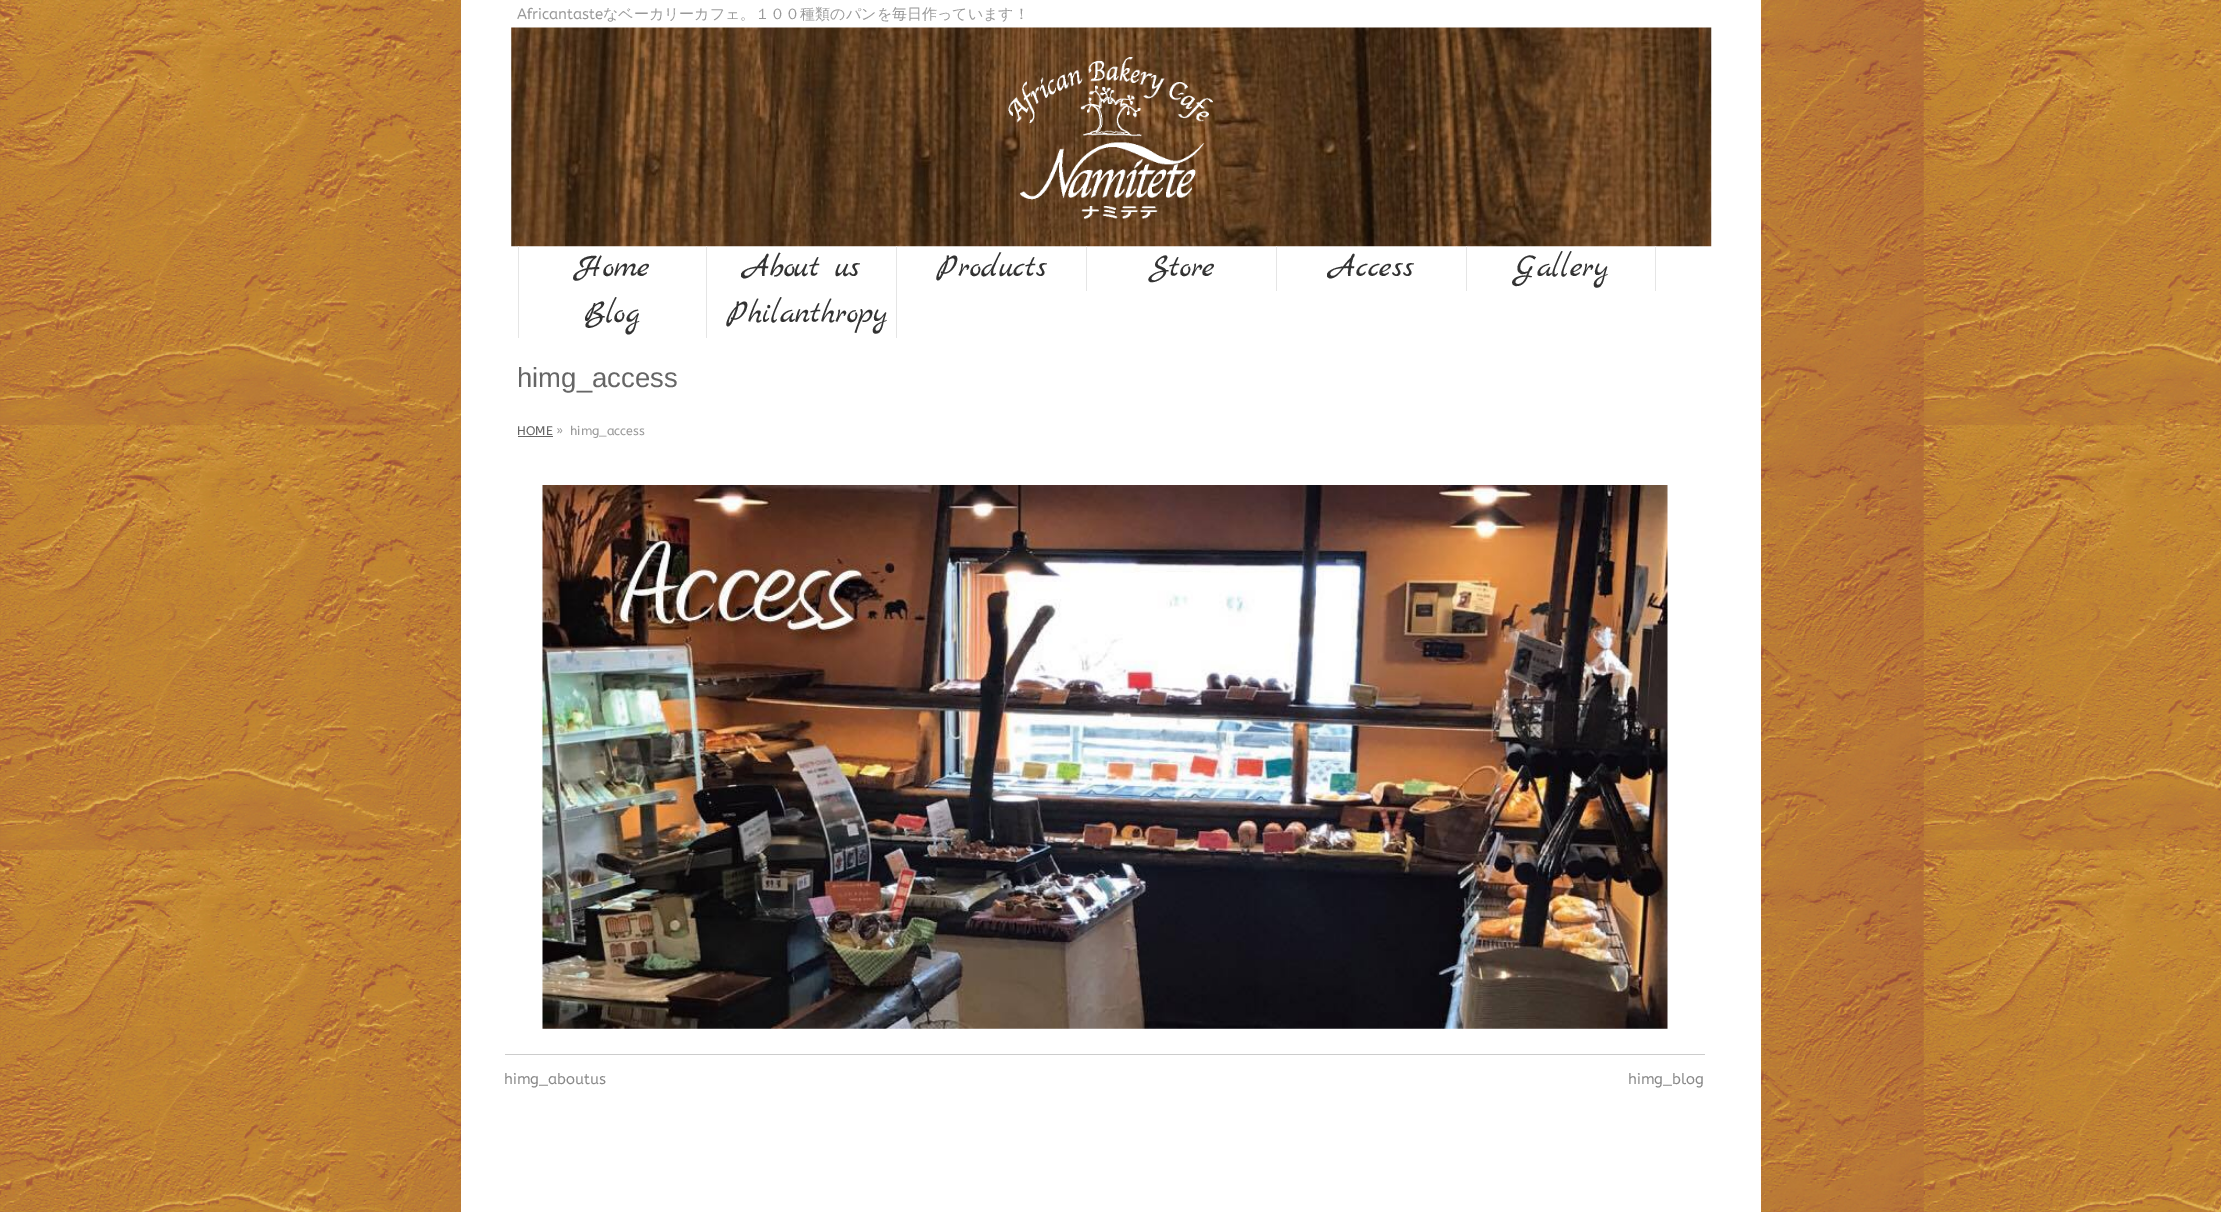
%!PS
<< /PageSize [2221 1212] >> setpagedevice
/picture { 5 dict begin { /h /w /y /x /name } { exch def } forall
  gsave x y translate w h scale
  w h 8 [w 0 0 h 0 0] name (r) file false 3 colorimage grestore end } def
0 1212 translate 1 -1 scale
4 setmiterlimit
1 setgray
0 0 2221 1212 rectfill
(img1.rgb) 0 0 2221 1212 picture
461 0 1300 1212 rectfill
/ABeeZee-Regular [15 0 0 -15 0 0] selectfont
0.6 setgray
517 19 moveto (Africantaste) show
/WenQuanYiZenHei-Medium [15 0 0 -15 0 0] selectfont
603 19 moveto (なベーカリーカフェ。１００種類のパンを毎日作っています！) show
(img2.rgb) 511 27 1201 220 picture
(img3.rgb) 1008 57 205 163 picture
0.898 setgray
518 246 1 92 rectfill
706 246 1 92 rectfill
/MarckScript-Regular [32.5 0 0 -32.5 0 0] selectfont
0.2 setgray
576 276 moveto (Home) show
0.898 setgray
896 246 1 92 rectfill
0.2 setgray
744 276 moveto (About us) show
0.898 setgray
1086 246 1 45 rectfill
0.2 setgray
937 276 moveto (Products) show
0.898 setgray
1276 246 1 45 rectfill
0.2 setgray
1149 276 moveto (Store) show
0.898 setgray
1466 246 1 45 rectfill
0.2 setgray
1330 276 moveto (Access) show
0.898 setgray
1655 246 1 45 rectfill
0.2 setgray
1515 276 moveto (Gallery) show
584 322 moveto (Blog) show
727 322 moveto (Philanthropy) show
/LiberationSans-Regular [27.5 0 0 -27.5 0 0] selectfont
0.4 setgray
517 387 moveto (himg_access) show
/ABeeZee-Regular [12.5 0 0 -12.5 0 0] selectfont
517 435 moveto (HOME) show
518 436 35 1 rectfill
0.6 setgray
556 435 moveto (») show
570 435 moveto (himg_access) show
(img4.rgb) 542 485 1126 544 picture
0.8 setgray
505 1054 1200 1 rectfill
/ABeeZee-Regular [15 0 0 -15 0 0] selectfont
0.533 setgray
504 1084 moveto (himg_aboutus) show
1628 1084 moveto (himg_blog) show
showpage
